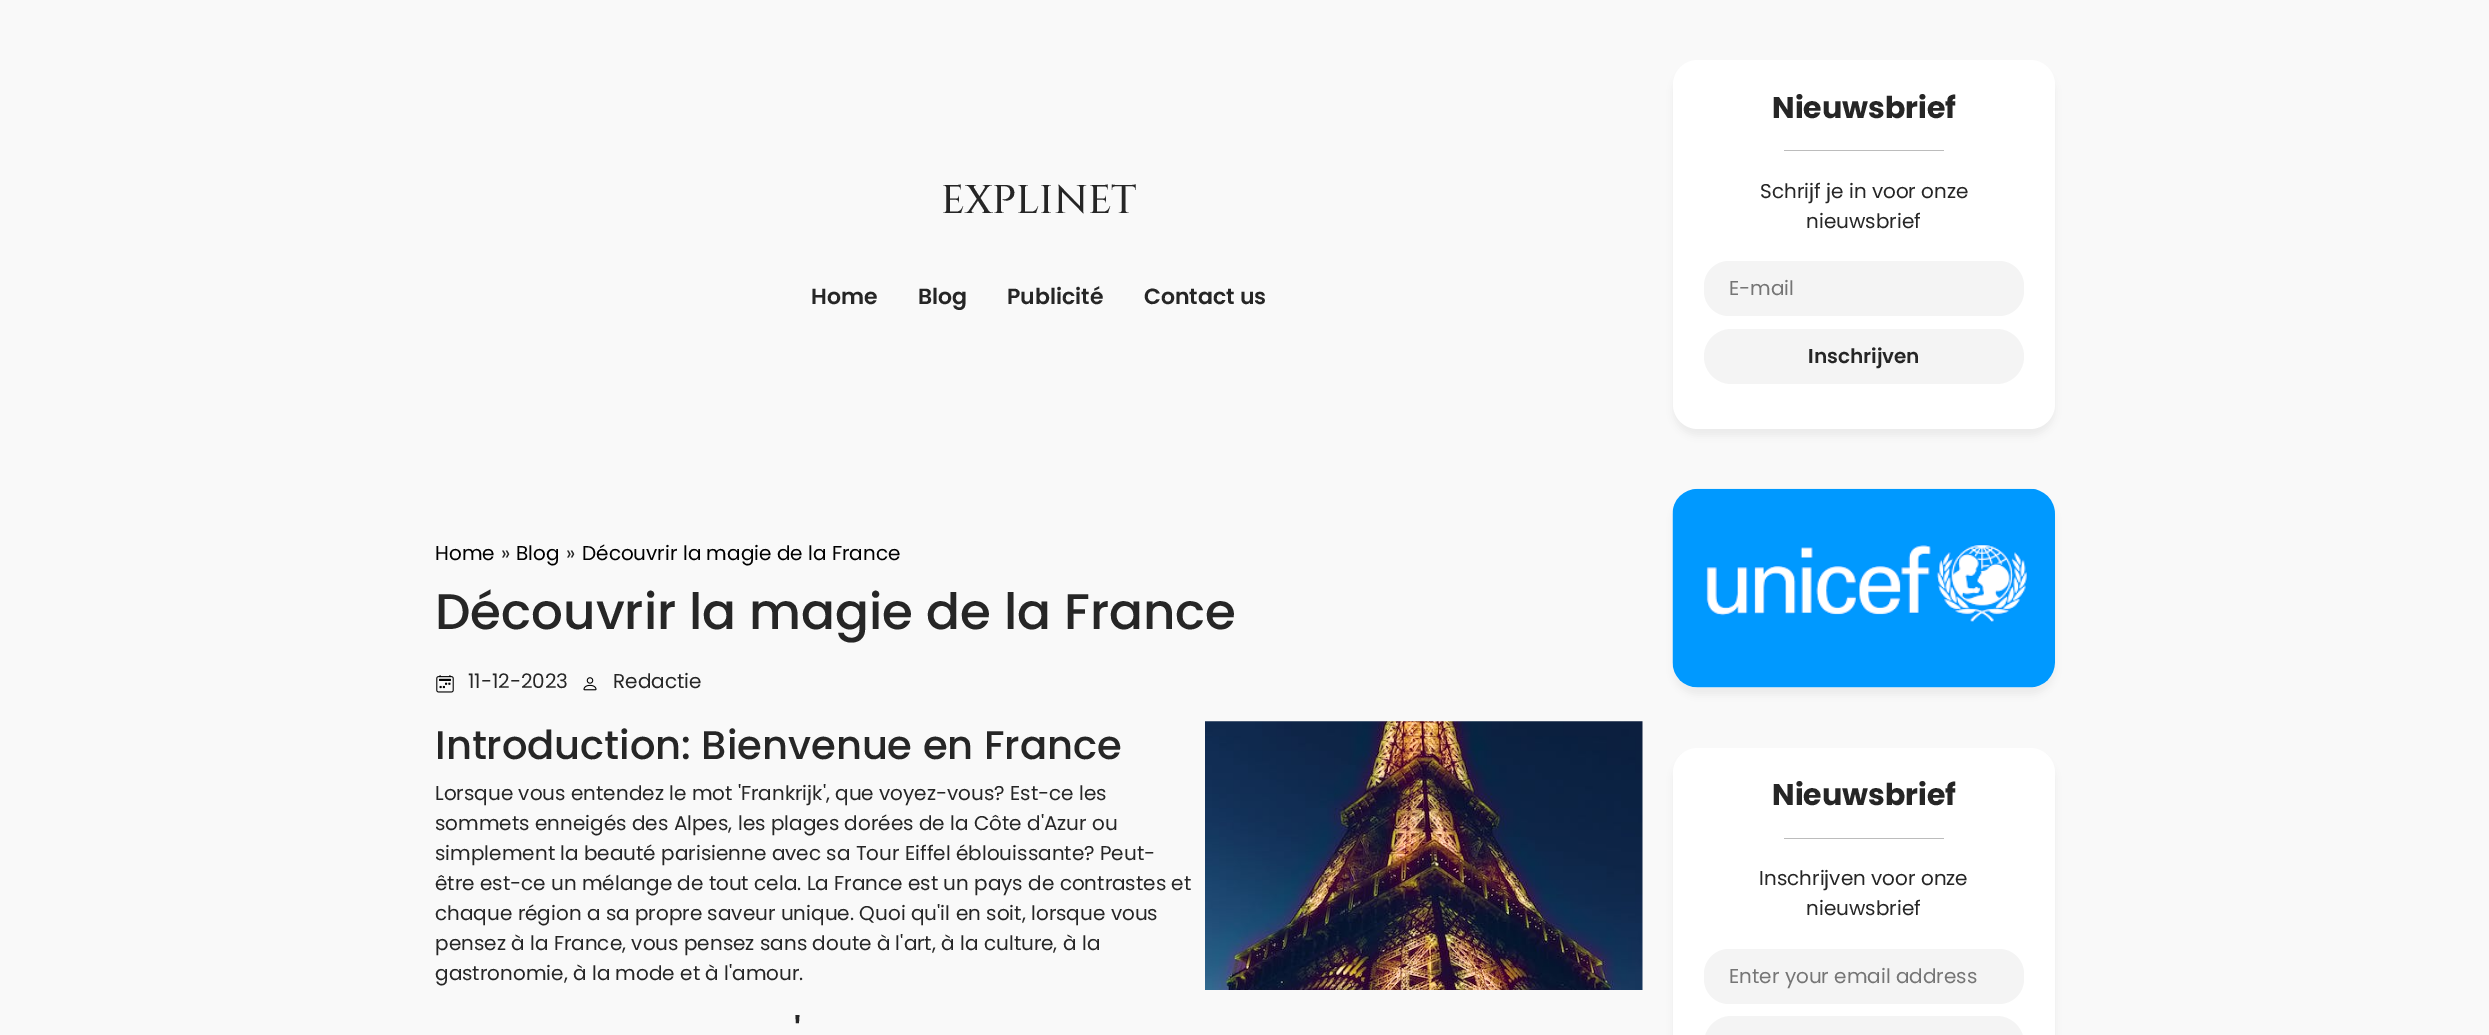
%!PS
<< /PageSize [2489 1035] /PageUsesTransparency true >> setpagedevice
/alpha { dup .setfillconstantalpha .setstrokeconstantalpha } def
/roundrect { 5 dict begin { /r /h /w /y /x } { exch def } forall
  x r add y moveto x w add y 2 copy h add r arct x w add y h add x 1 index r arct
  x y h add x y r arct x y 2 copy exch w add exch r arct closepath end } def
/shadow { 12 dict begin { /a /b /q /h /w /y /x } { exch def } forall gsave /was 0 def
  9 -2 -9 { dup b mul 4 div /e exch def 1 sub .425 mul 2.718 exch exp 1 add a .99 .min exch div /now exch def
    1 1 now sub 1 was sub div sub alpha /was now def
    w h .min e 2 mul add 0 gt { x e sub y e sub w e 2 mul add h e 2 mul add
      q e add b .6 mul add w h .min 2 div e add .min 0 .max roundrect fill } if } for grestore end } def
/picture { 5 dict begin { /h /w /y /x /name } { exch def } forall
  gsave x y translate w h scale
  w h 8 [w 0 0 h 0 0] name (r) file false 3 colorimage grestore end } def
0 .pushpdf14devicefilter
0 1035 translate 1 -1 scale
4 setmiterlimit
0.976 setgray
0 0 2489 1035 rectfill
/Cinzel-Medium [40 0 0 -40 0 0] selectfont
0.149 setgray
941 213 moveto (EXPLINET) show
/Poppins-SemiBold [22 0 0 -22 0 0] selectfont
811 304 moveto (Home) show
918 304 moveto (Blog) show
1007 304 moveto (Publicité) show
1144 304 moveto (Contact us) show
0 setgray
1673 68 382 368 25 4 0.05 shadow
1 setgray
1673 60 382 369 25 roundrect fill
/Poppins-Bold [30 0 0 -30 0 0] selectfont
0.149 setgray
1772 118 moveto (Nieuwsbrief) show
0.737 setgray
1784 150 160 1 rectfill
/Poppins-Regular [20 0 0 -20 0 0] selectfont
0.149 setgray
1760 198 moveto (Schrijf je in voor onze) show
1806 228 moveto (nieuwsbrief) show
0.957 setgray
1704 261 320 55 25 roundrect fill
0.459 setgray
1729 295 moveto (E-mail) show
0.957 setgray
1704 329 320 55 27.5 roundrect fill
/Poppins-SemiBold [20 0 0 -20 0 0] selectfont
0.149 setgray
1808 363 moveto (Inschrijven) show
/Poppins-Regular [20 0 0 -20 0 0] selectfont
0 setgray
435 560 moveto (Home) show
0.149 setgray
501 560 moveto (») show
0 setgray
516 560 moveto (Blog) show
0.149 setgray
566 560 moveto (») show
0 setgray
582 560 moveto (Découvrir la magie de la France) show
/Poppins-Medium [50 0 0 -50 0 0] selectfont
0.149 setgray
435 629 moveto (Découvrir la magie de la France) show
(img1.rgb) 436 675 18 18 picture
/Poppins-Regular [20 0 0 -20 0 0] selectfont
468 688 moveto (11-12-2023) show
(img2.rgb) 583 677 14 14 picture
613 688 moveto (Redactie) show
/Poppins-Medium [40 0 0 -40 0 0] selectfont
435 759 moveto (Introduction: Bienvenue en France) show
(img3.rgb) 1205 721 438 269 picture
/Poppins-Regular [20 0 0 -20 0 0] selectfont
435 800 moveto (Lorsque vous entendez le mot 'Frankrijk', que voyez-vous? Est-ce les) show
435 830 moveto (sommets enneigés des Alpes, les plages dorées de la Côte d'Azur ou) show
435 860 moveto (simplement la beauté parisienne avec sa Tour Eiffel éblouissante? Peut-) show
435 890 moveto (être est-ce un mélange de tout cela. La France est un pays de contrastes et) show
435 920 moveto (chaque région a sa propre saveur unique. Quoi qu'il en soit, lorsque vous) show
435 950 moveto (pensez à la France, vous pensez sans doute à l'art, à la culture, à la) show
435 980 moveto (gastronomie, à la mode et à l'amour.) show
/Poppins-Medium [40 0 0 -40 0 0] selectfont
794 1047 moveto (') show
0 setgray
1673 496 382 199 25 4 0.05 shadow
(img4.rgb) 1672 488 383 200 picture
1673 755 382 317 25 4 0.05 shadow
1 setgray
1673 748 382 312 25 roundrect fill
/Poppins-Bold [30 0 0 -30 0 0] selectfont
0.149 setgray
1772 805 moveto (Nieuwsbrief) show
0.737 setgray
1784 838 160 1 rectfill
/Poppins-Regular [20 0 0 -20 0 0] selectfont
0.149 setgray
1759 885 moveto (Inschrijven voor onze) show
1806 915 moveto (nieuwsbrief) show
0.957 setgray
1704 949 320 55 25 roundrect fill
0.459 setgray
1729 983 moveto (Enter your email address) show
0.957 setgray
1704 1016 320 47 27.5 roundrect fill
.poppdf14devicefilter showpage
